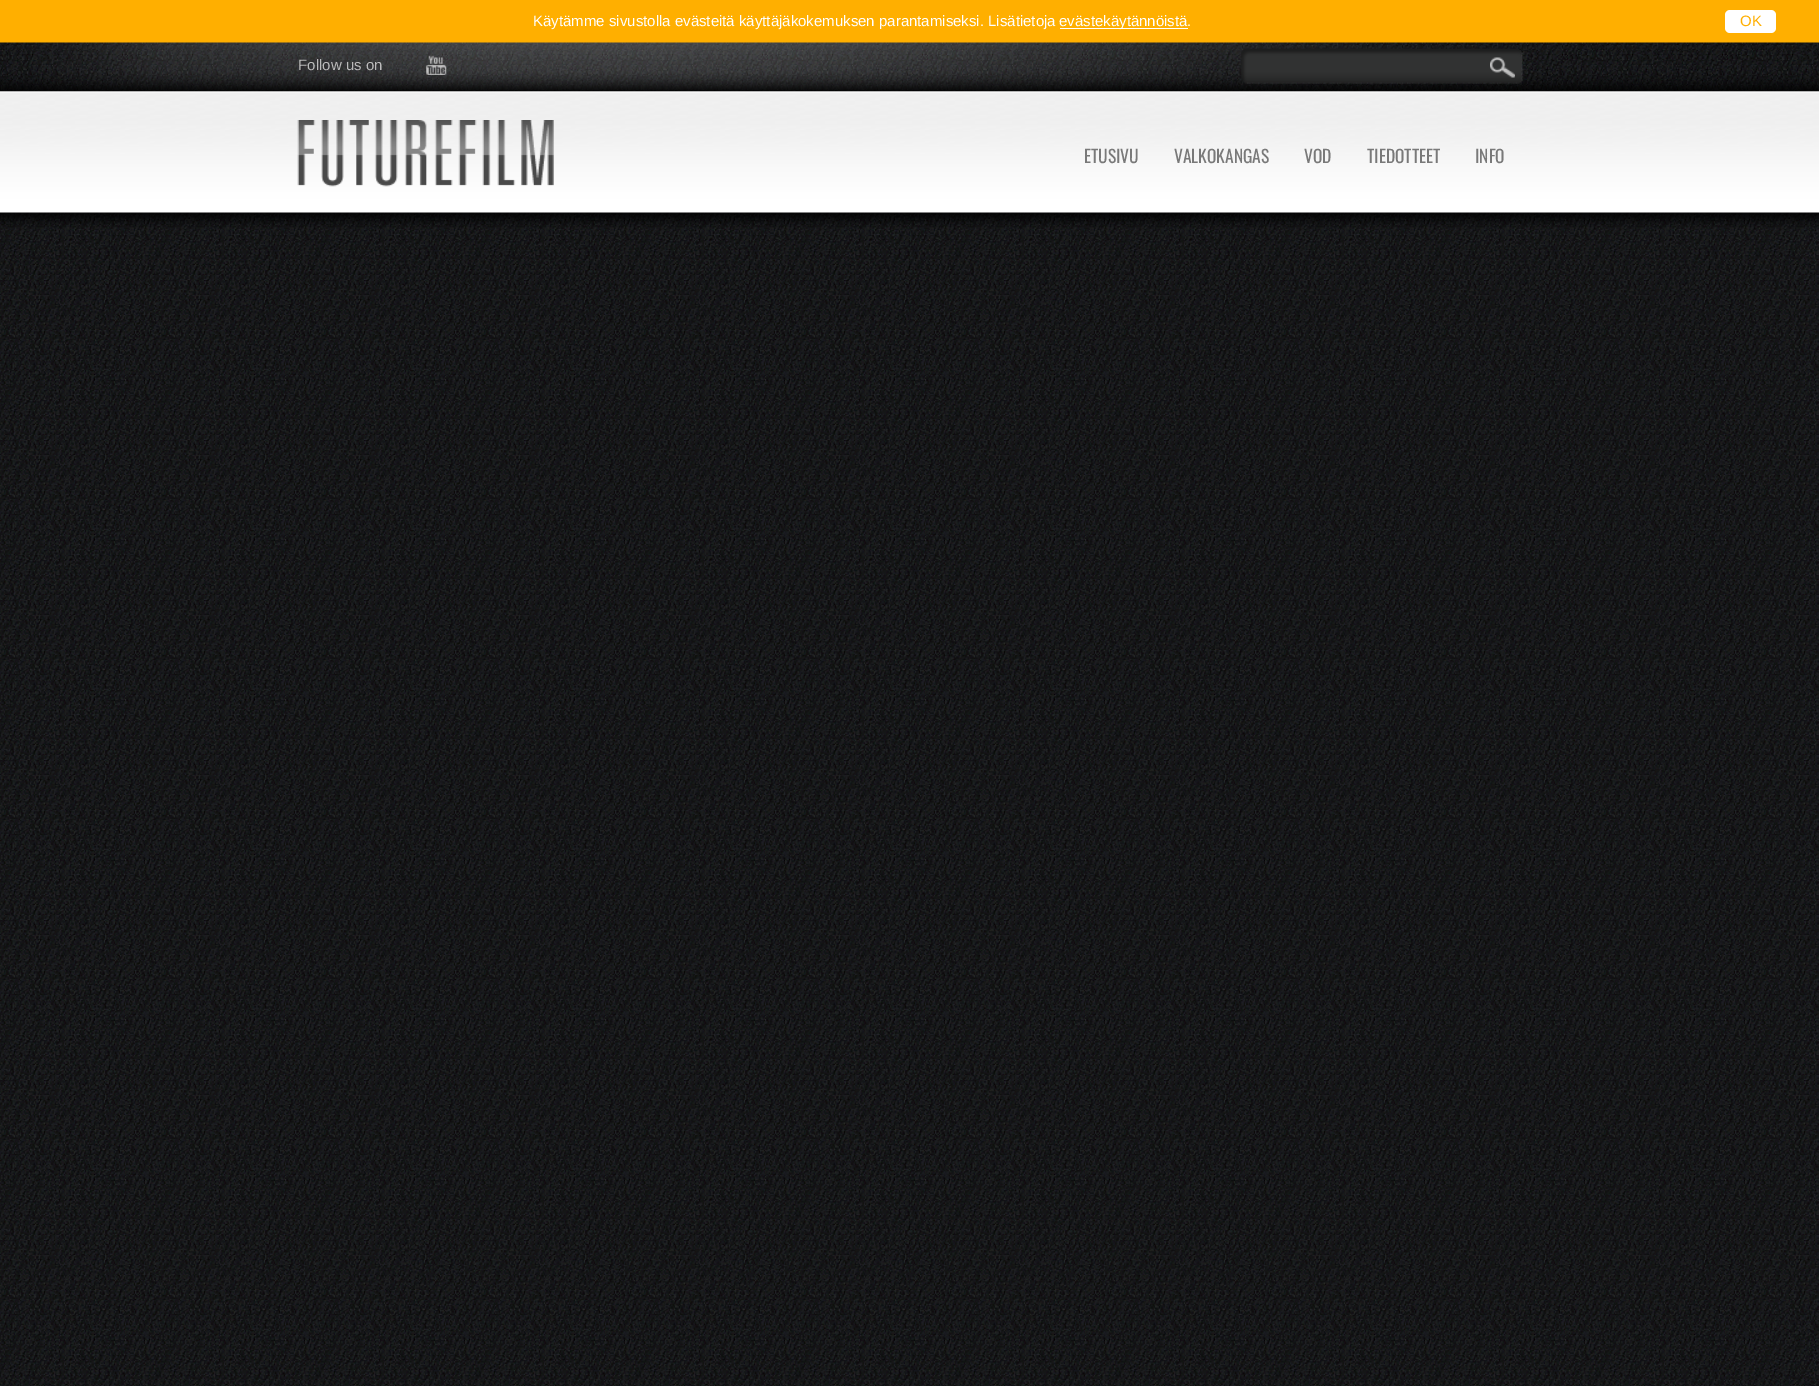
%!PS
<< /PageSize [1819 1386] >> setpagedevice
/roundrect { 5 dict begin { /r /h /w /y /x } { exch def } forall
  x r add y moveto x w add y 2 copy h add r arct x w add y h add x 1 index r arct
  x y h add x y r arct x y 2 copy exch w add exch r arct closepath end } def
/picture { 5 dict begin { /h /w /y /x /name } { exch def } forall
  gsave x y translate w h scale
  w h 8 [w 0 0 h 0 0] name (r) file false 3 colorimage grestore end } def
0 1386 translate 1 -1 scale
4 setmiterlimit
1 setgray
0 0 1819 1386 rectfill
(img1.rgb) 0 90 1819 1296 picture
1 0.686 0 setrgbcolor
0 0 1819 43 rectfill
/LiberationSans-Regular [15 0 0 -15 0 0] selectfont
1 setgray
533 26 moveto (Käytämme sivustolla evästeitä käyttäjäkokemuksen parantamiseksi. Lisätietoja) show
1060 28 128 1 rectfill
1059 26 moveto (evästekäytännöistä.) show
1725 10 51 23 5 roundrect fill
1 0.686 0 setrgbcolor
1740 26 moveto (OK) show
(img2.rgb) 0 42 1819 48 picture
0.733 setgray
298 70 moveto (Follow us on) show
(img3.rgb) 426 55 21 20 picture
(img4.rgb) 1241 48 282 36 picture
(img5.rgb) 1490 57 25 21 picture
(img6.rgb) 0 72 1819 155 picture
(img7.rgb) 297 120 257 67 picture
/Oswald-Regular [17.5 0 0 -17.5 0 0] selectfont
0.475 setgray
1084 163 moveto (ETUSIVU) show
1174 163 moveto (VALKOKANGAS) show
1304 163 moveto (VOD) show
1367 163 moveto (TIEDOTTEET) show
1475 163 moveto (INFO) show
showpage
